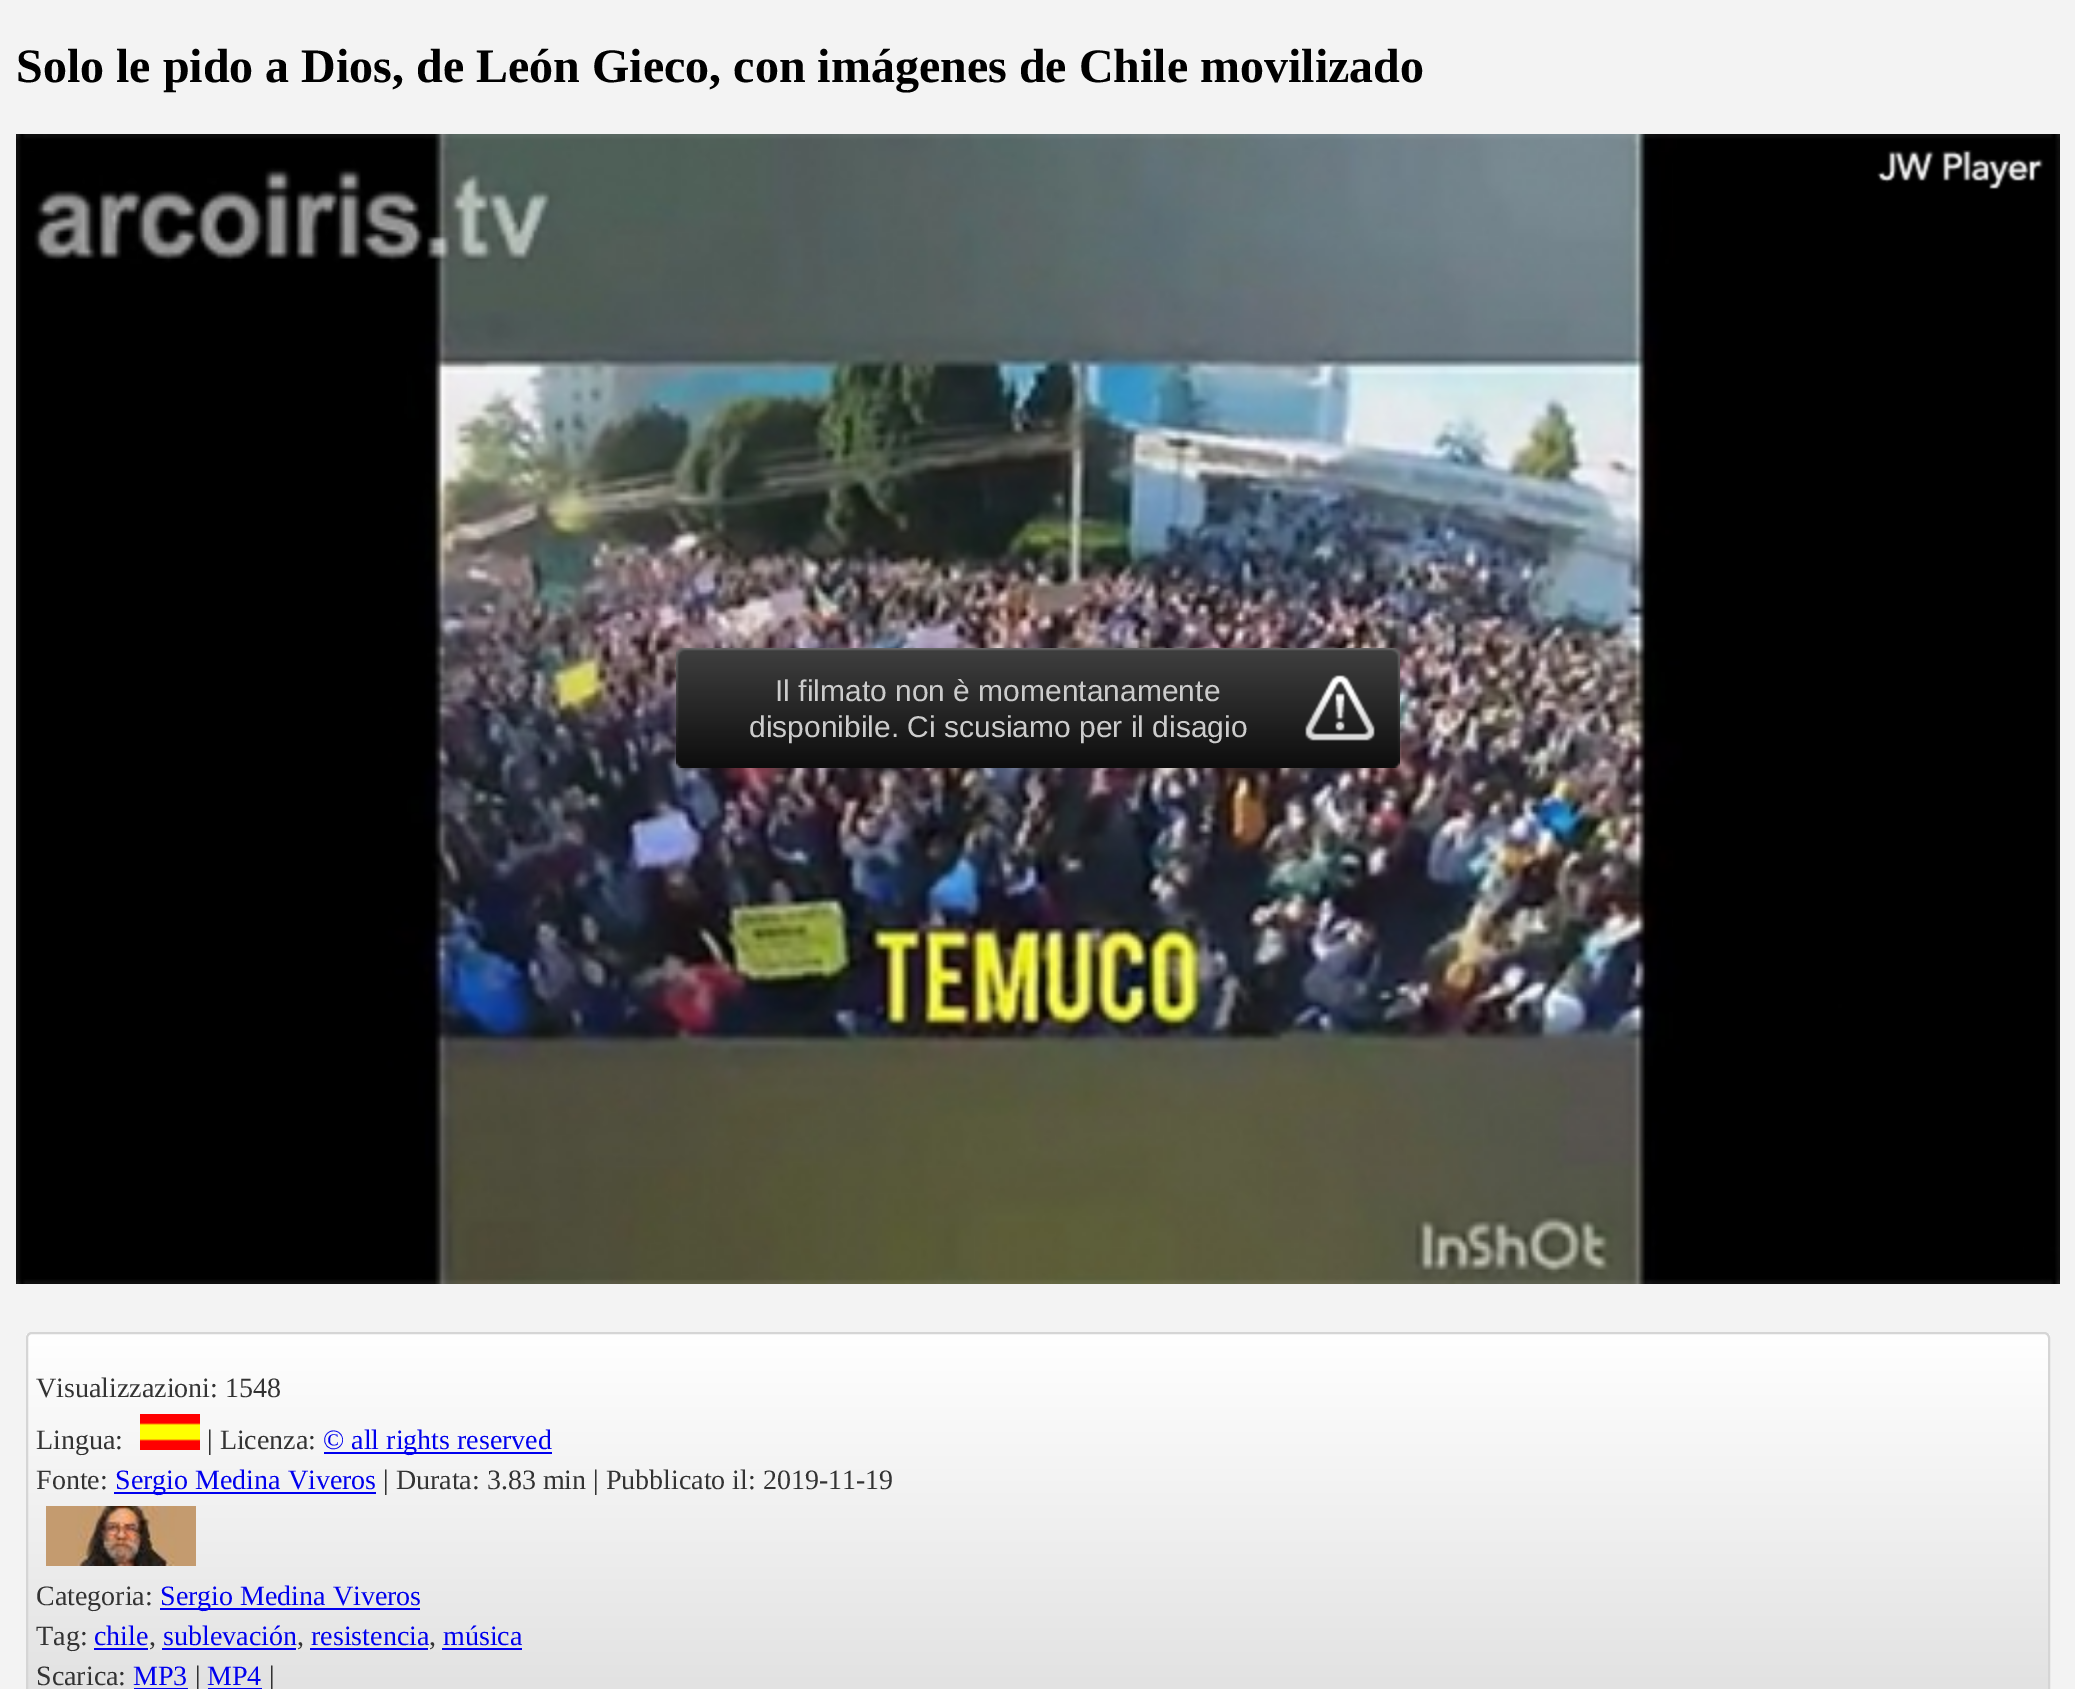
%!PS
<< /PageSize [2075 1689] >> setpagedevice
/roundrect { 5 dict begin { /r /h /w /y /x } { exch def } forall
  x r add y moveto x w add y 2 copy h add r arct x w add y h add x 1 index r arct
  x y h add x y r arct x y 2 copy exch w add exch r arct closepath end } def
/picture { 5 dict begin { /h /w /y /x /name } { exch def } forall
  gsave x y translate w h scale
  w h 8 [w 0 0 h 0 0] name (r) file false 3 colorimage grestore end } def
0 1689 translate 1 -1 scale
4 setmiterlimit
0.953 setgray
0 0 2075 1689 rectfill
/LiberationSerif-Bold [48 0 0 -48 0 0] selectfont
0 setgray
16 82 moveto (Solo le pido a Dios, de León Gieco, con imágenes de Chile movilizado) show
(img2.rgb) 16 134 2044 1150 picture
(img1.rgb) 1877 150 167 40 picture
(img3.rgb) 676 648 724 120 picture
/LiberationSans-Regular [30 0 0 -30 0 0] selectfont
0.8 setgray
775 701 moveto (Il filmato non è momentanamente) show
749 737 moveto (disponibile. Ci scusiamo per il disagio) show
(img4.rgb) 1305 675 70 66 picture
gsave
26 1332 2024 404 6 roundrect clip newpath
gsave newpath 26 1334 moveto 2050 1334 lineto 2050 1689 lineto 26 1689 lineto closepath clip newpath
<< /ShadingType 2 /ColorSpace /DeviceRGB /Coords [1038 1334 1038 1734] /Extend [true true] /Function << /FunctionType 2 /Domain [0 1] /C0 [1 1 1] /C1 [0.871 0.871 0.871] /N 1 >> >> shfill grestore
grestore
0.835 setgray
2 setlinewidth
27 1333 2022 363 5 roundrect stroke
/LiberationSerif-Regular [28 0 0 -28 0 0] selectfont
0.2 setgray
36 1397 moveto (Visualizzazioni: 1548) show
36 1449 moveto (Lingua:) show
(img5.rgb) 140 1414 60 36 picture
207 1449 moveto (| Licenza:) show
0 0 0.933 setrgbcolor
324 1452 228 2 rectfill
323 1449 moveto (© all rights reserved) show
0.2 setgray
36 1489 moveto (Fonte:) show
0 0 0.933 setrgbcolor
114 1492 262 2 rectfill
115 1489 moveto (Sergio Medina Viveros) show
0.2 setgray
383 1489 moveto (| Durata: 3.83 min | Pubblicato il: 2019-11-19) show
(img6.rgb) 46 1506 150 60 picture
36 1605 moveto (Categoria:) show
0 0 0.933 setrgbcolor
160 1608 260 2 rectfill
160 1605 moveto (Sergio Medina Viveros) show
0.2 setgray
36 1645 moveto (Tag:) show
0 0 0.933 setrgbcolor
94 1645 moveto (chile) show
94 1648 54 2 rectfill
0.2 setgray
149 1645 moveto (,) show
0 0 0.933 setrgbcolor
163 1645 moveto (sublevación) show
162 1648 134 2 rectfill
0.2 setgray
297 1645 moveto (,) show
0 0 0.933 setrgbcolor
311 1645 moveto (resistencia) show
310 1648 118 2 rectfill
0.2 setgray
429 1645 moveto (,) show
0 0 0.933 setrgbcolor
443 1645 moveto (música) show
442 1648 80 2 rectfill
0.2 setgray
36 1685 moveto (Scarica:) show
0 0 0.933 setrgbcolor
133 1685 moveto (MP3) show
134 1688 54 1 rectfill
0.2 setgray
195 1685 moveto (|) show
0 0 0.933 setrgbcolor
207 1685 moveto (MP4) show
208 1688 54 1 rectfill
0.2 setgray
269 1685 moveto (|) show
showpage
